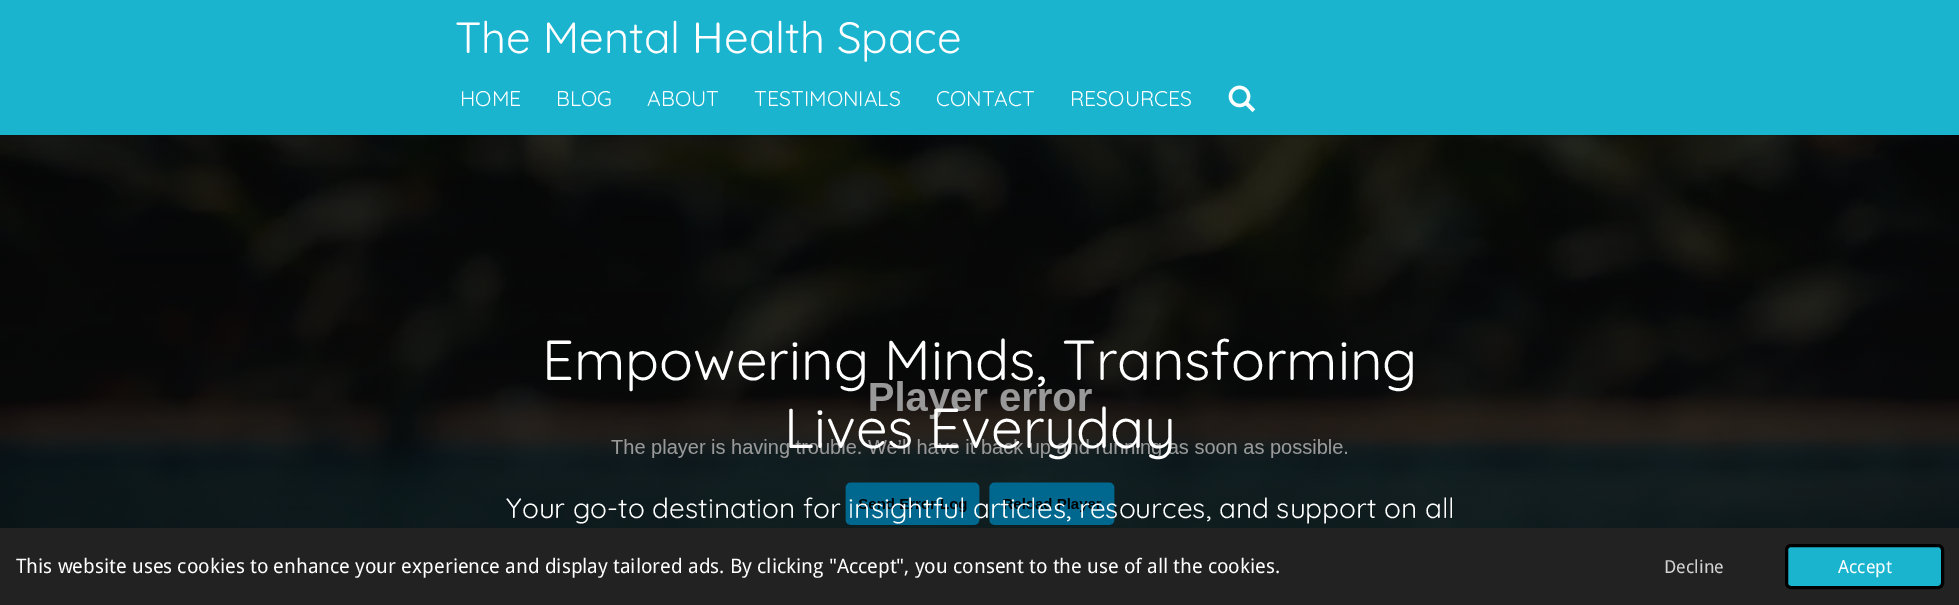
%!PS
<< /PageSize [1959 605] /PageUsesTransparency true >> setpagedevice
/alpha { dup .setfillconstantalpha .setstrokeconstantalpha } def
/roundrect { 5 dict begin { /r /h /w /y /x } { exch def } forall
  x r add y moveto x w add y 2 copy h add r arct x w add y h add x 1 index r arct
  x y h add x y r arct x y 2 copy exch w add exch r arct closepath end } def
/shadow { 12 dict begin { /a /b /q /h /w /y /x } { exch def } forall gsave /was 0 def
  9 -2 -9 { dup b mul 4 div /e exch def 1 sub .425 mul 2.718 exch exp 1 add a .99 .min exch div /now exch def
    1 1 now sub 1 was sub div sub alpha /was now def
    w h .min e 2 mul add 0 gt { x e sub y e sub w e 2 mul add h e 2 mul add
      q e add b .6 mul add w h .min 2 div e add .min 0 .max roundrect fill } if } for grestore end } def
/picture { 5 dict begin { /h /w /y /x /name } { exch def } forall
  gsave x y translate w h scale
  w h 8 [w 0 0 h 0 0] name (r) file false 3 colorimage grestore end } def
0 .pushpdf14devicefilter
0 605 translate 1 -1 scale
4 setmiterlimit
1 setgray
0 0 1959 605 rectfill
(img2.rgb) 0 135 1959 393 picture
(img3.rgb) 0 135 1959 393 picture
0 setgray
0 0 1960 135 0 3 0.2 shadow
0.102 0.706 0.812 setrgbcolor
0 0 1959 135 rectfill
/Quicksand-Regular [43.75 0 0 -43.75 0 0] selectfont
1 setgray
455 53 moveto (The Mental Health Space) show
/Quicksand-Regular [21.25 0 0 -21.25 0 0] selectfont
460 106 moveto (HOME) show
556 106 moveto (BLOG) show
647 106 moveto (ABOUT) show
754 106 moveto (TESTIMONIALS) show
936 106 moveto (CONTACT) show
1070 106 moveto (RESOURCES) show
(img1.rgb) 1228 85 28 27 picture
/Quicksand-Regular [56.25 0 0 -56.25 0 0] selectfont
542 380 moveto (Empowering Minds, Transforming) show
784 448 moveto (Lives Everyday) show
/Quicksand-Regular [28 0 0 -28 0 0] selectfont
506 518 moveto (Your go-to destination for insightful articles, resources, and support on all) show
0.133 setgray
0 528 1959 77 rectfill
/DroidSans-Regular [20 0 0 -20 0 0] selectfont
1 setgray
16 573 moveto (This website uses cookies to enhance your experience and display tailored ads. By clicking "Accept", you consent to the use of all the cookies.) show
/DroidSans-Regular [18 0 0 -18 0 0] selectfont
0.827 setgray
1664 573 moveto (Decline) show
0.102 0.706 0.812 setrgbcolor
1786.5 545.5 156 42 4.5 roundrect gsave fill grestore
0 setgray
3 setlinewidth
stroke
1 setgray
1838 573 moveto (Accept) show
.poppdf14devicefilter showpage
